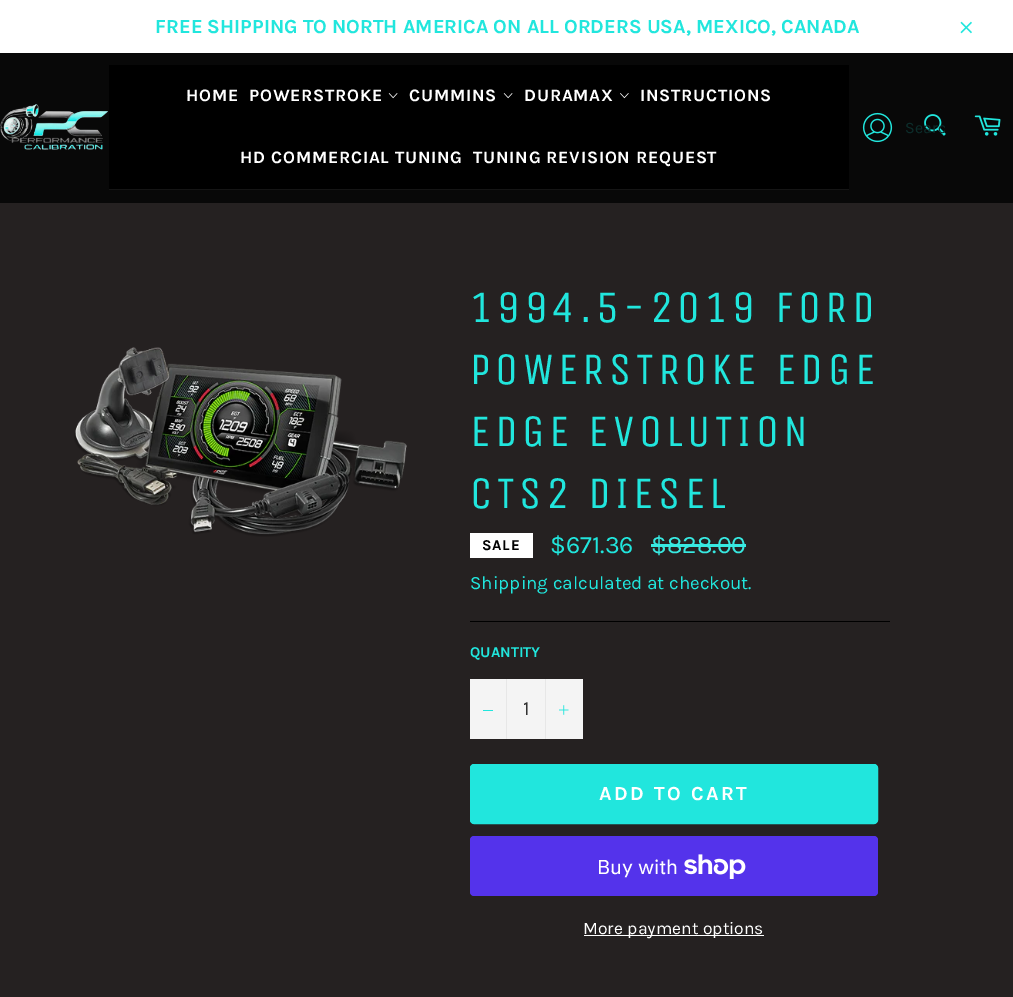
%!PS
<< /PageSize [1013 997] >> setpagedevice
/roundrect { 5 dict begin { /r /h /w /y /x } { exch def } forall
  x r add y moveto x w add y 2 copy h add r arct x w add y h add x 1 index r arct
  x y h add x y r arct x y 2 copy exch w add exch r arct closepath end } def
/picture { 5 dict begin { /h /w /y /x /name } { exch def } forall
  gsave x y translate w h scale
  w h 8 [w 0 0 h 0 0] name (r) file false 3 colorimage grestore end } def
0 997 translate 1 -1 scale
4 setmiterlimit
0.031 setgray
0 0 1013 997 rectfill
1 setgray
0 0 1013 53 rectfill
/Karla-Bold [20 0 0 -20 0 0] selectfont
0.129 0.902 0.867 setrgbcolor
155 33 moveto (FREE SHIPPING TO NORTH AMERICA ON ALL ORDERS USA, MEXICO, CANADA) show
(img1.rgb) 960 21 12 13 picture
(img2.rgb) 0 104 108 46 picture
0 setgray
109 65 740 124 rectfill
/Karla-Bold [17.5 0 0 -17.5 0 0] selectfont
1 setgray
186 101 moveto 0.75 0 (HOME) ashow
249 101 moveto 0.75 0 (POWERSTROKE) ashow
(img3.rgb) 388 93 10 6 picture
409 101 moveto 0.75 0 (CUMMINS) ashow
(img3.rgb) 503 93 10 6 picture
524 101 moveto 0.75 0 (DURAMAX) ashow
(img4.rgb) 620 93 9 6 picture
640 101 moveto 0.75 0 (INSTRUCTIONS) ashow
240 163 moveto 0.75 0 (HD COMMERCIAL TUNING) ashow
473 163 moveto 0.75 0 (TUNING REVISION REQUEST) ashow
0.082 setgray
109 189 740 1 rectfill
(img5.rgb) 862 112 31 31 picture
(img6.rgb) 924 114 22 22 picture
gsave
905 118 40 18 rectclip
/Karla-Regular [16 0 0 -16 0 0] selectfont
0.047 0.176 0.169 setrgbcolor
905 133 moveto (Searc) show
grestore
(img7.rgb) 974 115 27 21 picture
0.145 0.129 0.129 setrgbcolor
0 203 1013 794 rectfill
(img8.rgb) 74 347 333 190 picture
/UnicaOne-Regular [45 0 0 -45 0 0] selectfont
0.129 0.902 0.867 setrgbcolor
470 322 moveto 4.5 0 (1994.5-2019 FORD) ashow
470 384 moveto 4.5 0 (POWERSTROKE EDGE) ashow
470 446 moveto 4.5 0 (EDGE EVOLUTION) ashow
470 508 moveto 4.5 0 (CTS2 DIESEL) ashow
1 setgray
470 533 63 25 rectfill
/Karla-Bold [15 0 0 -15 0 0] selectfont
0 setgray
482 550 moveto 0.75 0 (SALE) ashow
/Karla-Regular [25 0 0 -25 0 0] selectfont
0.129 0.902 0.867 setrgbcolor
550 553 moveto ($671.36) show
0.22 0.914 0.882 setrgbcolor
651 553 moveto ($828.00) show
651 544 95 3 rectfill
/Karla-Regular [18.75 0 0 -18.75 0 0] selectfont
0.129 0.902 0.867 setrgbcolor
470 589 moveto (Shipping calculated at checkout.) show
0 setgray
470 621 420 1 rectfill
/Karla-Bold [15 0 0 -15 0 0] selectfont
0.129 0.902 0.867 setrgbcolor
470 657 moveto (QUANTITY) show
0.957 setgray
470 679 113 60 rectfill
0.906 setgray
506 679 1 60 rectfill
0.129 0.902 0.867 setrgbcolor
483 710 10 1 rectfill
/Karla-Regular [20 0 0 -20 0 0] selectfont
0.2 setgray
523 715 moveto (1) show
0.906 setgray
545 679 1 60 rectfill
(img9.rgb) 559 705 10 10 picture
0.129 0.902 0.867 setrgbcolor
470.5 764.5 407 59 3.5 roundrect gsave fill grestore
stroke
/Karla-Bold [20 0 0 -20 0 0] selectfont
1 setgray
599 800 moveto 2.5 0 (ADD TO CART) ashow
0.329 0.2 0.922 setrgbcolor
470 836 408 60 4 roundrect fill
/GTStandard-Regular [20 0 0 -20 0 0] selectfont
1 setgray
597 874 moveto (Buy with) show
(img10.rgb) 684 854 62 25 picture
584 935 180 1 rectfill
/Karla-Regular [17.5 0 0 -17.5 0 0] selectfont
583 934 moveto (More payment options) show
showpage
